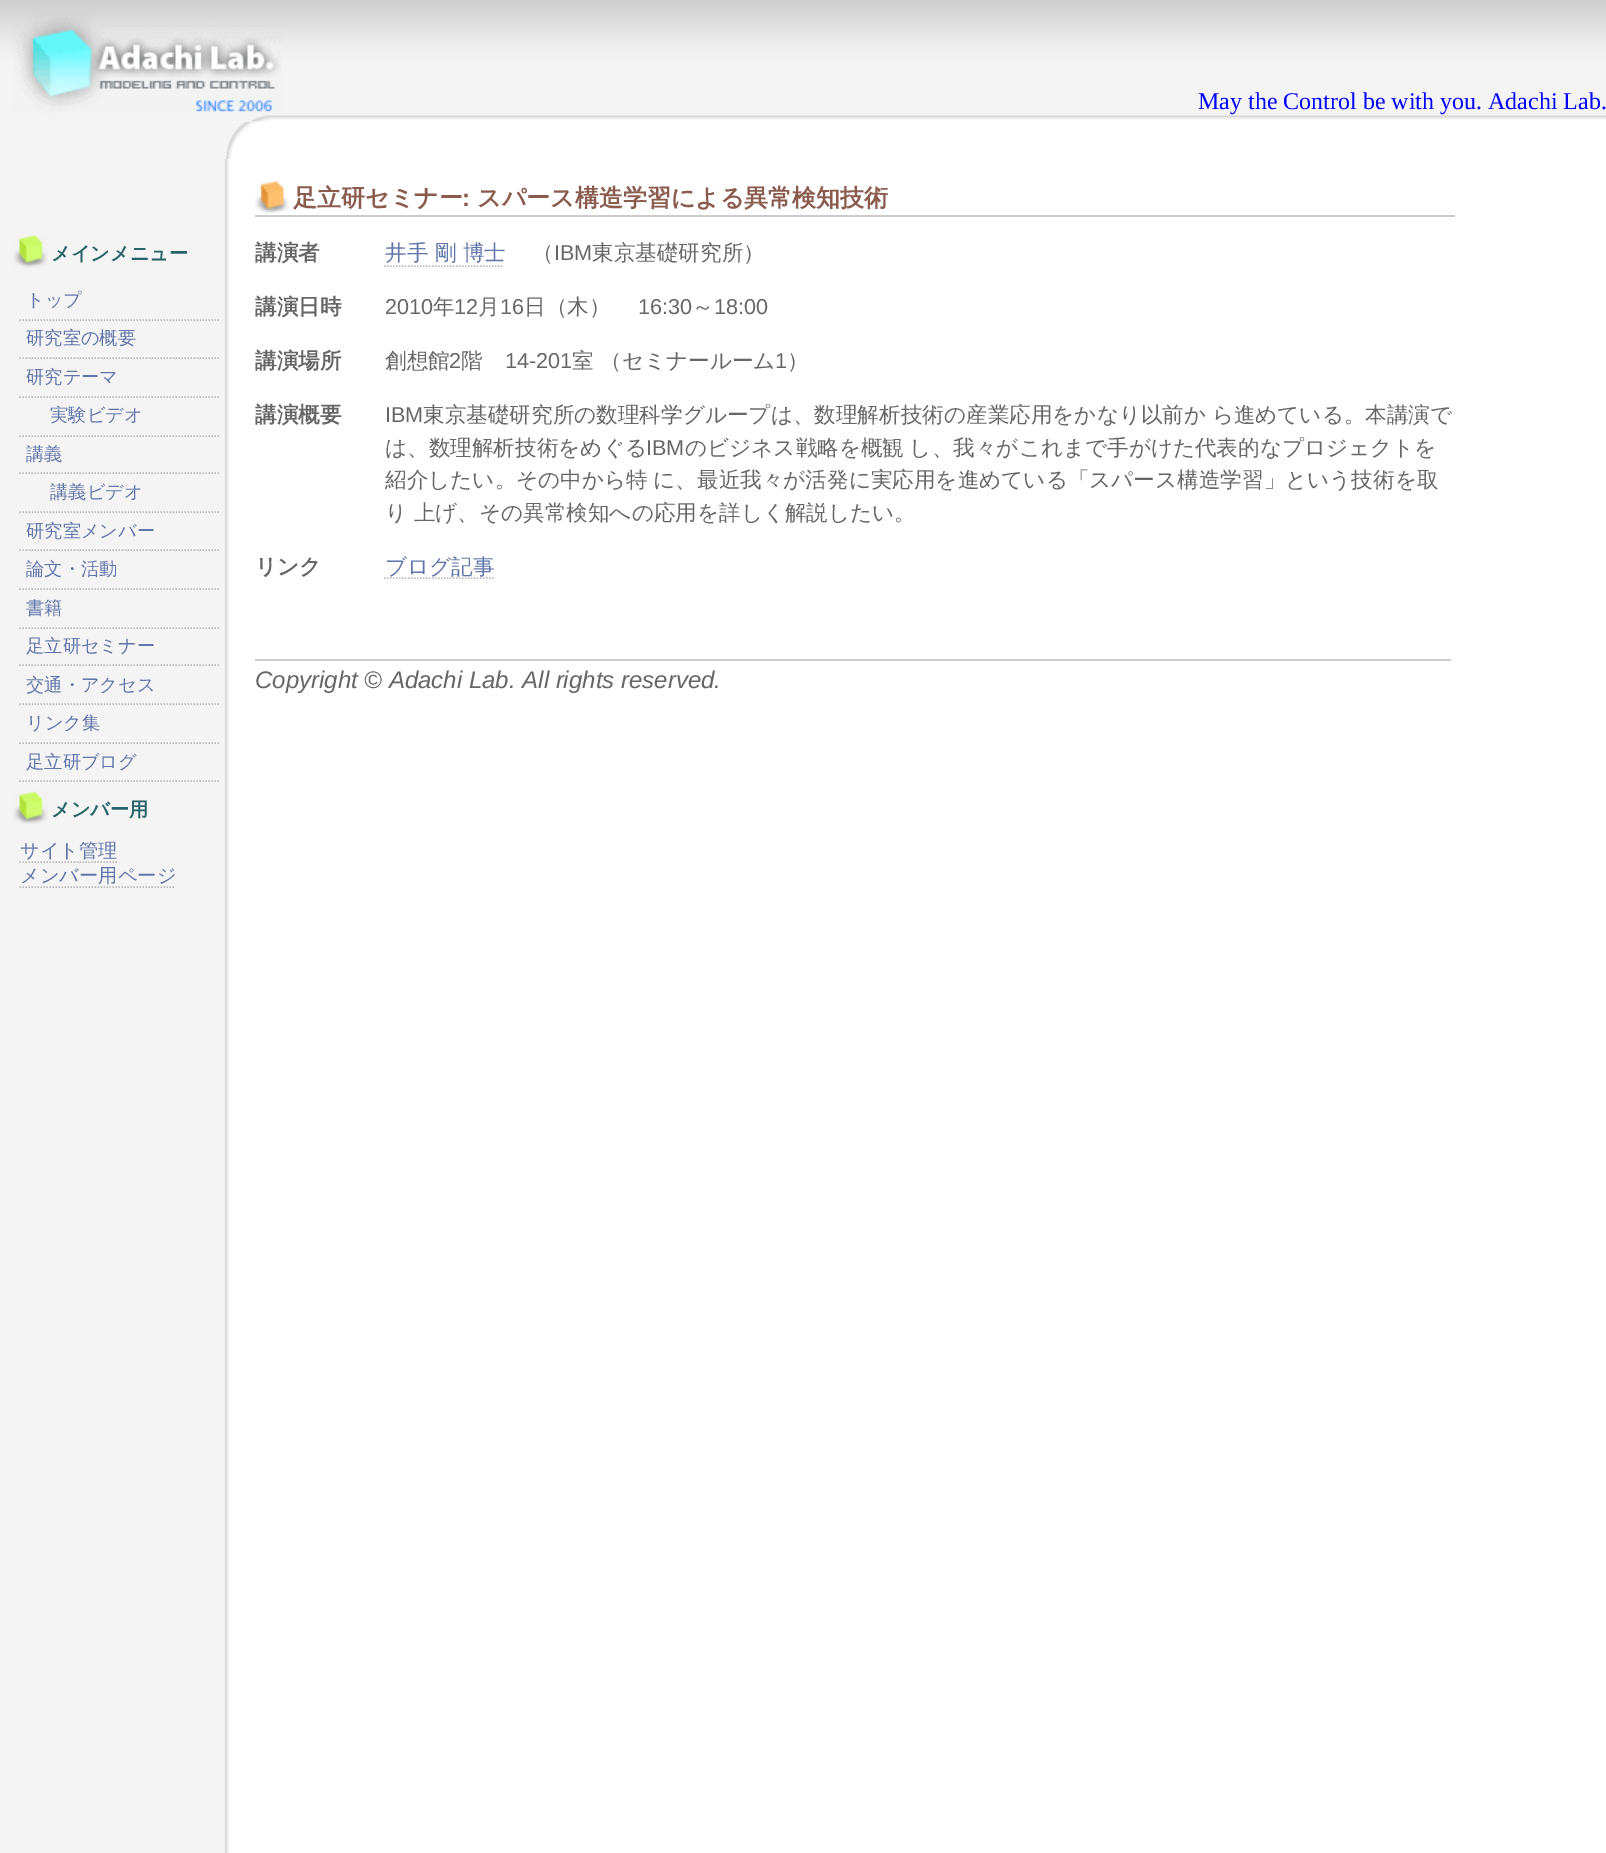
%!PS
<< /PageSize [1606 1853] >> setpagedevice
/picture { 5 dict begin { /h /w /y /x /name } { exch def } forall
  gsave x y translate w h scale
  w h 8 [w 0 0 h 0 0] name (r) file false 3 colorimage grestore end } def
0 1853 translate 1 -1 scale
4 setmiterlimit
1 setgray
0 0 1606 1853 rectfill
(img1.rgb) 0 121 229 1732 picture
(img5.rgb) 224 121 32 38 picture
(img2.rgb) 0 0 1606 122 picture
(img3.rgb) 0 115 270 7 picture
(img4.rgb) 12 14 270 100 picture
/LiberationSerif-Regular [24 0 0 -24 0 0] selectfont
0 0 1 setrgbcolor
1198 109 moveto (May the Control be with you. Adachi Lab.) show
(img6.rgb) 13 235 35 33 picture
/WenQuanYiZenHei-Bold [19.25 0 0 -19.25 0 0] selectfont
0.157 0.388 0.404 setrgbcolor
51 260 moveto (メインメニュー) show
0.733 setgray
1.5 setlinewidth
[1.5 1.5] 0 setdash
newpath 19.5 320 moveto 219 320 lineto stroke
/WenQuanYiZenHei-Medium [18.25 0 0 -18.25 0 0] selectfont
0.376 0.459 0.667 setrgbcolor
26 306 moveto (トップ) show
0.733 setgray
newpath 19.5 358 moveto 219 358 lineto stroke
0.376 0.459 0.667 setrgbcolor
26 344 moveto (研究室の概要) show
0.733 setgray
newpath 19.5 397 moveto 219 397 lineto stroke
0.376 0.459 0.667 setrgbcolor
26 383 moveto (研究テーマ) show
0.733 setgray
newpath 19.5 436 moveto 219 436 lineto stroke
0.376 0.459 0.667 setrgbcolor
50 421 moveto (実験ビデオ) show
0.733 setgray
newpath 19.5 473 moveto 219 473 lineto stroke
0.376 0.459 0.667 setrgbcolor
26 460 moveto (講義) show
0.733 setgray
newpath 19.5 512 moveto 219 512 lineto stroke
0.376 0.459 0.667 setrgbcolor
50 498 moveto (講義ビデオ) show
0.733 setgray
newpath 19.5 550 moveto 219 550 lineto stroke
0.376 0.459 0.667 setrgbcolor
26 537 moveto (研究室メンバー) show
0.733 setgray
newpath 19.5 589 moveto 219 589 lineto stroke
0.376 0.459 0.667 setrgbcolor
26 575 moveto (論文・活動) show
0.733 setgray
newpath 19.5 628 moveto 219 628 lineto stroke
0.376 0.459 0.667 setrgbcolor
26 614 moveto (書籍) show
0.733 setgray
newpath 19.5 665 moveto 219 665 lineto stroke
0.376 0.459 0.667 setrgbcolor
26 652 moveto (足立研セミナー) show
0.733 setgray
newpath 19.5 704 moveto 219 704 lineto stroke
0.376 0.459 0.667 setrgbcolor
26 691 moveto (交通・アクセス) show
0.733 setgray
newpath 19.5 743 moveto 219 743 lineto stroke
0.376 0.459 0.667 setrgbcolor
26 729 moveto (リンク集) show
0.733 setgray
newpath 19.5 781 moveto 219 781 lineto stroke
0.376 0.459 0.667 setrgbcolor
26 768 moveto (足立研ブログ) show
(img7.rgb) 13 791 35 33 picture
/WenQuanYiZenHei-Bold [19.25 0 0 -19.25 0 0] selectfont
0.157 0.388 0.404 setrgbcolor
51 816 moveto (メンバー用) show
/WenQuanYiZenHei-Medium [19.25 0 0 -19.25 0 0] selectfont
0.376 0.459 0.667 setrgbcolor
20 857 moveto (サイト管理) show
0.733 setgray
newpath 19.5 862 moveto 117 862 lineto stroke
0.376 0.459 0.667 setrgbcolor
20 882 moveto (メンバー用ページ) show
0.733 setgray
newpath 19.5 887 moveto 175.5 887 lineto stroke
(img8.rgb) 255 181 34 33 picture
0.8 setgray
255 215 1200 2 rectfill
/WenQuanYiZenHei-Bold [24 0 0 -24 0 0] selectfont
0.545 0.357 0.306 setrgbcolor
293 206 moveto (足立研セミナー) show
/LiberationSans-Bold [24 0 0 -24 0 0] selectfont
462 206 moveto (:) show
/WenQuanYiZenHei-Bold [24 0 0 -24 0 0] selectfont
477 206 moveto (スパース構造学習による異常検知技術) show
/WenQuanYiZenHei-Bold [21.6 0 0 -21.6 0 0] selectfont
0.4 setgray
255 260 moveto (講演者) show
/WenQuanYiZenHei-Medium [21.6 0 0 -21.6 0 0] selectfont
0.376 0.459 0.667 setrgbcolor
385 260 moveto (井手 剛 博士) show
0.733 setgray
newpath 384 266 moveto 504 266 lineto stroke
0.4 setgray
532 260 moveto (（) show
/LiberationSans-Regular [21.6 0 0 -21.6 0 0] selectfont
554 260 moveto (IBM) show
/WenQuanYiZenHei-Medium [21.6 0 0 -21.6 0 0] selectfont
592 260 moveto (東京基礎研究所）) show
/WenQuanYiZenHei-Bold [21.6 0 0 -21.6 0 0] selectfont
255 314 moveto (講演日時) show
/LiberationSans-Regular [21.6 0 0 -21.6 0 0] selectfont
385 314 moveto (2010) show
/WenQuanYiZenHei-Medium [21.6 0 0 -21.6 0 0] selectfont
433 314 moveto (年) show
/LiberationSans-Regular [21.6 0 0 -21.6 0 0] selectfont
454 314 moveto (12) show
/WenQuanYiZenHei-Medium [21.6 0 0 -21.6 0 0] selectfont
478 314 moveto (月) show
/LiberationSans-Regular [21.6 0 0 -21.6 0 0] selectfont
500 314 moveto (16) show
/WenQuanYiZenHei-Medium [21.6 0 0 -21.6 0 0] selectfont
524 314 moveto (日（木）) show
/LiberationSans-Regular [21.6 0 0 -21.6 0 0] selectfont
638 314 moveto (16:30) show
/WenQuanYiZenHei-Medium [21.6 0 0 -21.6 0 0] selectfont
692 314 moveto (～) show
/LiberationSans-Regular [21.6 0 0 -21.6 0 0] selectfont
714 314 moveto (18:00) show
/WenQuanYiZenHei-Bold [21.6 0 0 -21.6 0 0] selectfont
255 368 moveto (講演場所) show
/WenQuanYiZenHei-Medium [21.6 0 0 -21.6 0 0] selectfont
385 368 moveto (創想館) show
/LiberationSans-Regular [21.6 0 0 -21.6 0 0] selectfont
449 368 moveto (2) show
/WenQuanYiZenHei-Medium [21.6 0 0 -21.6 0 0] selectfont
461 368 moveto (階) show
/LiberationSans-Regular [21.6 0 0 -21.6 0 0] selectfont
505 368 moveto (14-201) show
/WenQuanYiZenHei-Medium [21.6 0 0 -21.6 0 0] selectfont
572 368 moveto (室 （セミナールーム) show
/LiberationSans-Regular [21.6 0 0 -21.6 0 0] selectfont
775 368 moveto (1) show
/WenQuanYiZenHei-Medium [21.6 0 0 -21.6 0 0] selectfont
787 368 moveto (）) show
/WenQuanYiZenHei-Bold [21.6 0 0 -21.6 0 0] selectfont
255 422 moveto (講演概要) show
/LiberationSans-Regular [21.6 0 0 -21.6 0 0] selectfont
385 422 moveto (IBM) show
/WenQuanYiZenHei-Medium [21.6 0 0 -21.6 0 0] selectfont
423 422 moveto -1 0 32 (東京基礎研究所の数理科学グループは、数理解析技術の産業応用をかなり以前か ら進めている。本講演で) widthshow
385 455 moveto (は、数理解析技術をめぐる) show
/LiberationSans-Regular [21.6 0 0 -21.6 0 0] selectfont
646 455 moveto (IBM) show
/WenQuanYiZenHei-Medium [21.6 0 0 -21.6 0 0] selectfont
685 455 moveto -1 0 32 (のビジネス戦略を概観 し、我々がこれまで手がけた代表的なプロジェクトを) widthshow
385 487 moveto -1 0 32 (紹介したい。その中から特 に、最近我々が活発に実応用を進めている「スパース構造学習」という技術を取) widthshow
385 520 moveto (り 上げ、その異常検知への応用を詳しく解説したい。) show
/WenQuanYiZenHei-Bold [21.6 0 0 -21.6 0 0] selectfont
255 574 moveto (リンク) show
/WenQuanYiZenHei-Medium [21.6 0 0 -21.6 0 0] selectfont
0.376 0.459 0.667 setrgbcolor
385 574 moveto (ブログ記事) show
0.733 setgray
newpath 384 578 moveto 493.5 578 lineto stroke
0.8 setgray
255 659 1196 2 rectfill
/LiberationSans-Italic [24 0 0 -24 0 0] selectfont
0.4 setgray
255 688 moveto (Copyright © Adachi Lab. All rights reserved.) show
showpage
